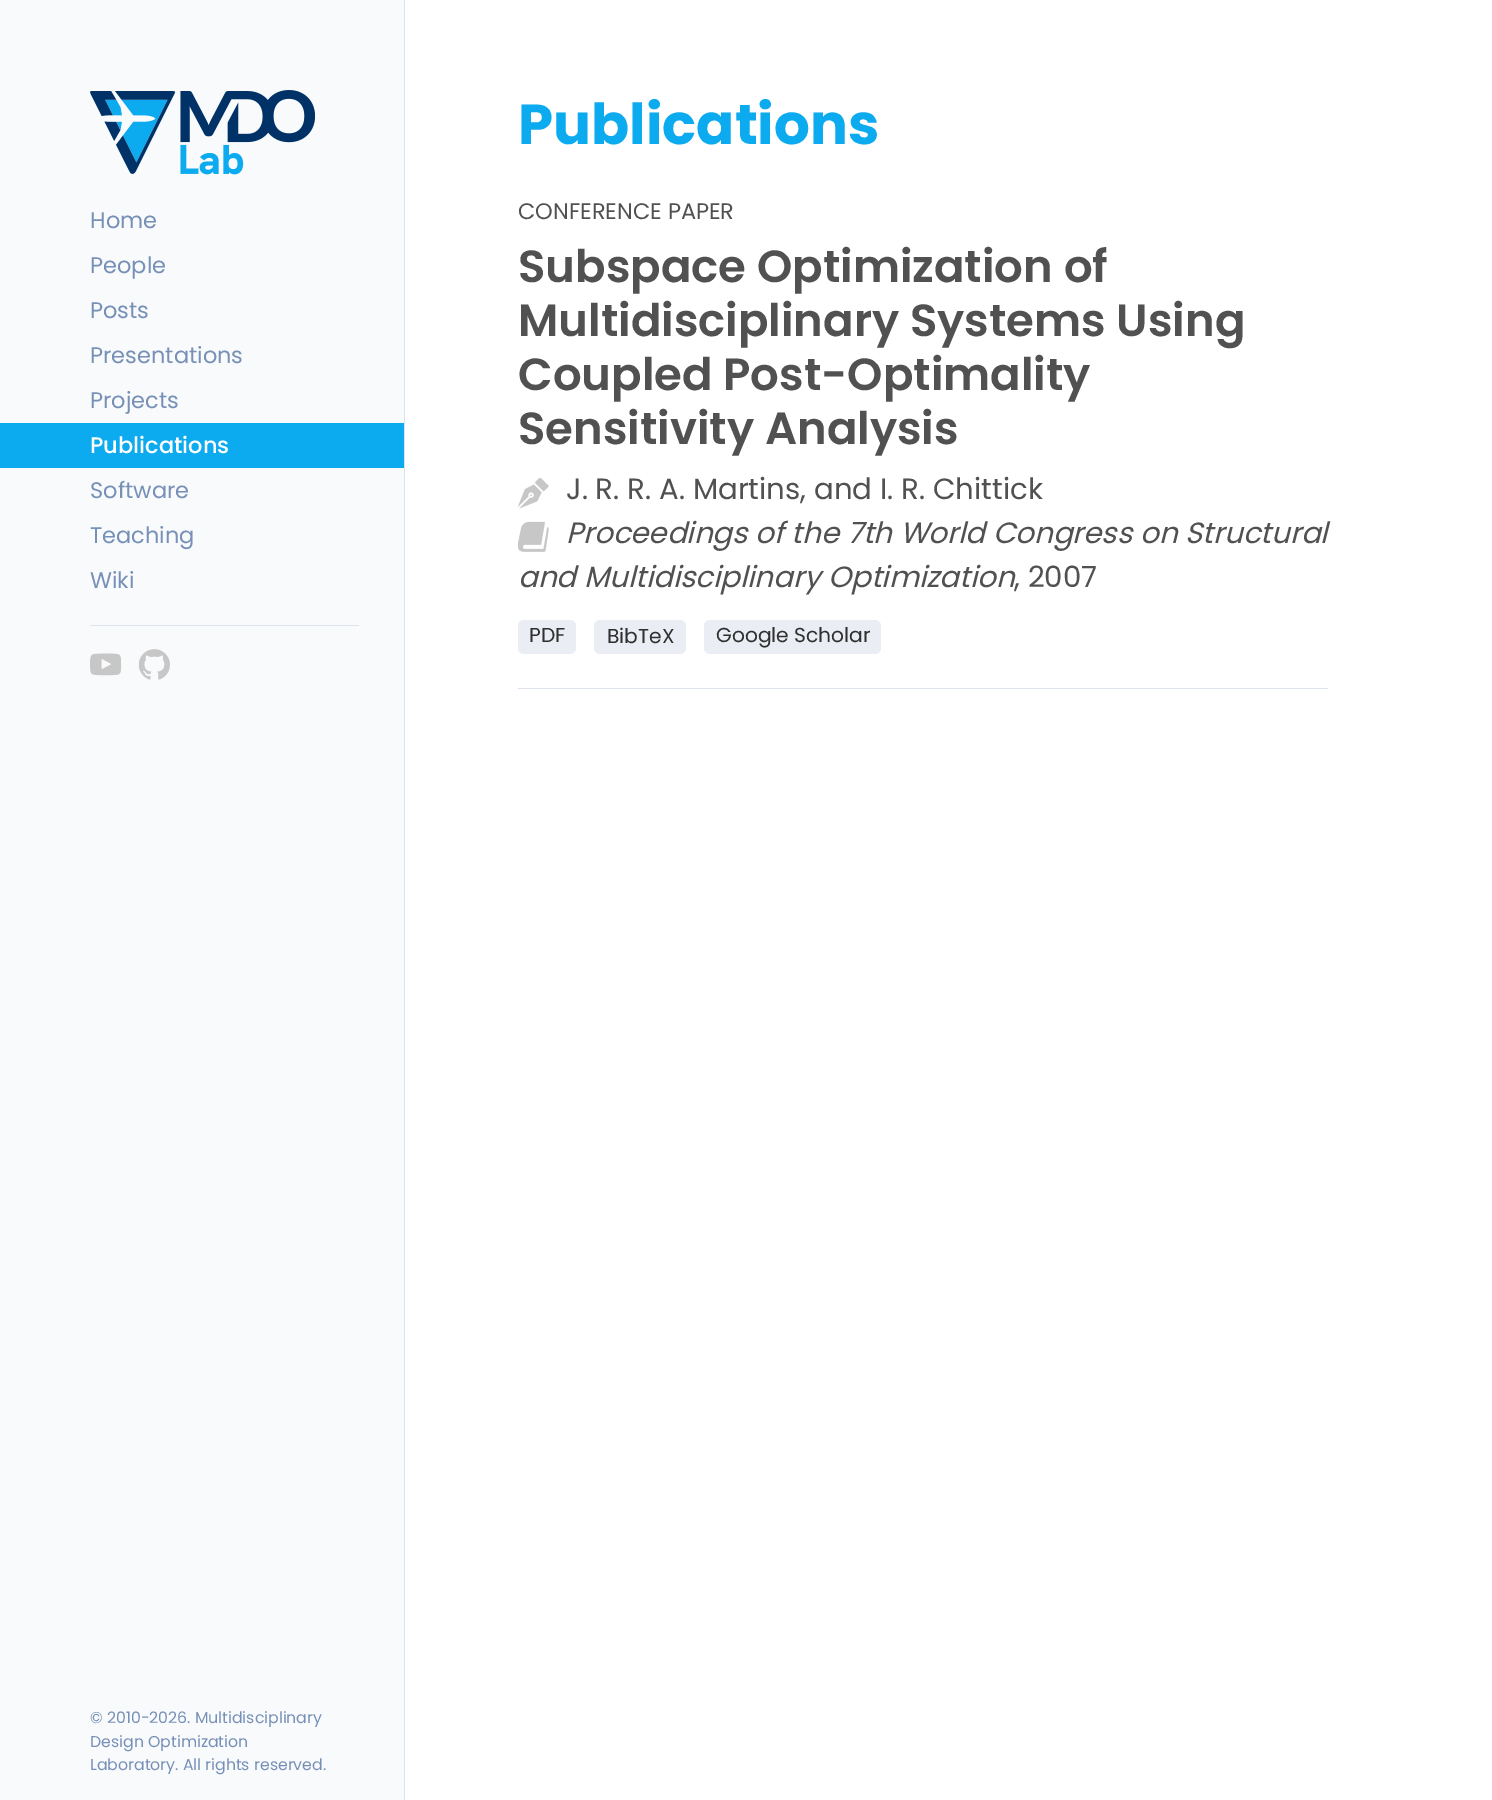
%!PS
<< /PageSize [1492 1800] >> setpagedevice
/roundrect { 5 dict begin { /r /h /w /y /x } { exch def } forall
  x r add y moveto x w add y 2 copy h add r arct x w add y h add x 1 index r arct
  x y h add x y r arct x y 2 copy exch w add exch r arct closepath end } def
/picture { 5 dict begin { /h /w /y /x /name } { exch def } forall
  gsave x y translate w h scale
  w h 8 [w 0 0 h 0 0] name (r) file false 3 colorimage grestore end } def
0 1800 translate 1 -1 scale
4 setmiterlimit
1 setgray
0 0 1492 1800 rectfill
0.976 0.98 0.988 setrgbcolor
0 0 404 1800 rectfill
0.867 0.894 0.929 setrgbcolor
404 0 1 1800 rectfill
(img1.rgb) 90 90 225 85 picture
/Poppins-Regular [22.5 0 0 -22.5 0 0] selectfont
0.463 0.565 0.718 setrgbcolor
90 228 moveto (Home) show
90 273 moveto (People) show
90 318 moveto (Posts) show
90 363 moveto (Presentations) show
90 408 moveto (Projects) show
0.047 0.667 0.937 setrgbcolor
0 423 404 45 rectfill
/Poppins-Medium [22.5 0 0 -22.5 0 0] selectfont
1 setgray
90 453 moveto (Publications) show
/Poppins-Regular [22.5 0 0 -22.5 0 0] selectfont
0.463 0.565 0.718 setrgbcolor
90 498 moveto (Software) show
90 543 moveto (Teaching) show
90 588 moveto (Wiki) show
0.867 0.894 0.929 setrgbcolor
90 625 269 1 rectfill
(img2.rgb) 90 653 31 23 picture
(img3.rgb) 139 649 31 31 picture
/Poppins-Regular [15.75 0 0 -15.75 0 0] selectfont
0.463 0.565 0.718 setrgbcolor
90 1723 moveto (© 2010-2026. Multidisciplinary) show
90 1747 moveto (Design Optimization) show
90 1770 moveto (Laboratory. All rights reserved.) show
/Poppins-Bold [56.25 0 0 -56.25 0 0] selectfont
0.047 0.667 0.937 setrgbcolor
518 144 moveto (Publications) show
/Poppins-Regular [22.5 0 0 -22.5 0 0] selectfont
0.318 setgray
518 219 moveto (CONFERENCE PAPER) show
/Poppins-SemiBold [45 0 0 -45 0 0] selectfont
518 282 moveto (Subspace Optimization of) show
518 336 moveto (Multidisciplinary Systems Using) show
518 390 moveto (Coupled Post-Optimality) show
518 444 moveto (Sensitivity Analysis) show
(img4.rgb) 518 478 31 31 picture
/Poppins-Regular [29.25 0 0 -29.25 0 0] selectfont
566 499 moveto (J. R. R. A. Martins, and I. R. Chittick) show
(img5.rgb) 518 521 31 31 picture
/Poppins-Italic [29.25 0 0 -29.25 0 0] selectfont
566 543 moveto (Proceedings of the 7th World Congress on Structural) show
518 587 moveto (and Multidisciplinary Optimization) show
/Poppins-Regular [29.25 0 0 -29.25 0 0] selectfont
1014 587 moveto (, 2007) show
0.867 0.894 0.929 setrgbcolor
518 688 810 1 rectfill
0.918 0.933 0.957 setrgbcolor
518 620 58 34 6 roundrect fill
/Poppins-Regular [20.25 0 0 -20.25 0 0] selectfont
0.188 setgray
529 642 moveto (PDF) show
0.918 0.933 0.957 setrgbcolor
594 620 92 34 6 roundrect fill
0.188 setgray
607 643 moveto (BibTeX) show
0.918 0.933 0.957 setrgbcolor
704 620 177 34 6 roundrect fill
0.188 setgray
716 642 moveto (Google Scholar) show
showpage
